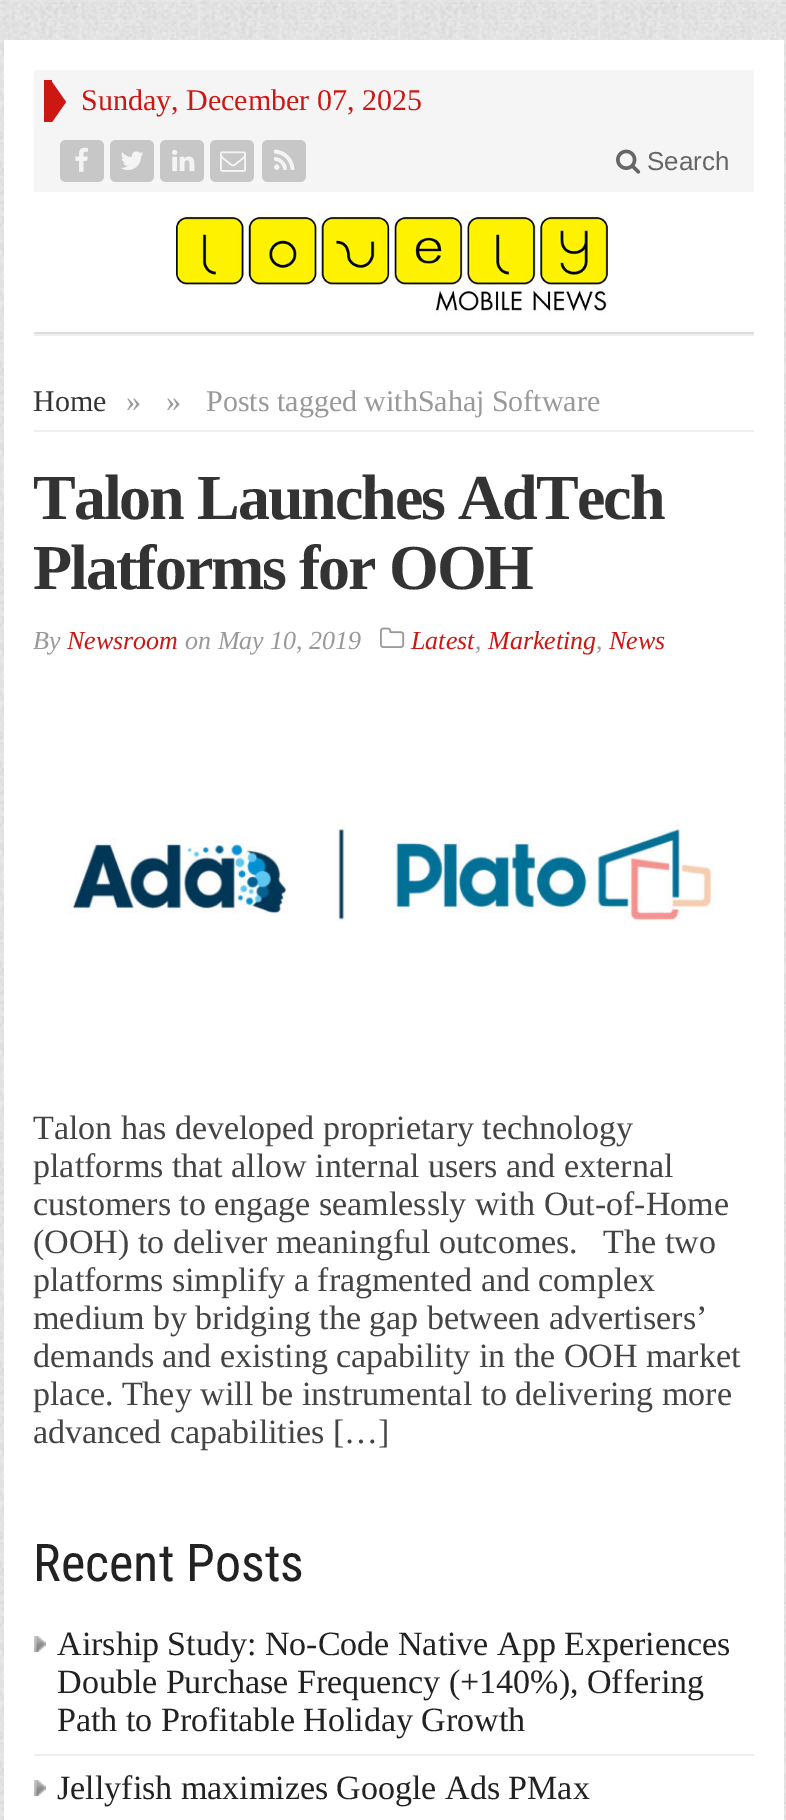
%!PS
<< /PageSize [786 1820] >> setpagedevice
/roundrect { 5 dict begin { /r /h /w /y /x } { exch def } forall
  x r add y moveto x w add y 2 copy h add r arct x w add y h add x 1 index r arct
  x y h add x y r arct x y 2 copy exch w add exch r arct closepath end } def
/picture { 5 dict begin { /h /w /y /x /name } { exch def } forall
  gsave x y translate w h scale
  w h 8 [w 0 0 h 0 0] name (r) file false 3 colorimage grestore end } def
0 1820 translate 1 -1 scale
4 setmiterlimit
1 setgray
0 0 786 1820 rectfill
(img1.rgb) 0 0 786 1820 picture
4 40 780 1780 rectfill
0.961 setgray
34 70 720 122 rectfill
0.804 0.09 0.075 setrgbcolor
44 80 8 42 rectfill
newpath 52 122 moveto 52 82 lineto 66 102 lineto closepath fill
/LiberationSerif-Regular [30 0 0 -30 0 0] selectfont
81 110 moveto (Sunday, December 07, 2025) show
0.78 setgray
60 140 44 42 6 roundrect fill
(img2.rgb) 75 147 13 25 picture
110 140 44 42 6 roundrect fill
(img3.rgb) 121 151 22 19 picture
160 140 44 42 6 roundrect fill
(img4.rgb) 172 149 23 23 picture
210 140 44 42 6 roundrect fill
(img5.rgb) 220 151 26 21 picture
262 140 44 42 6 roundrect fill
(img6.rgb) 274 149 21 21 picture
(img7.rgb) 616 149 25 25 picture
/LiberationSans-Regular [26 0 0 -26 0 0] selectfont
0.4 setgray
647 170 moveto (Search) show
(img8.rgb) 174 214 434 101 picture
0.867 setgray
34 332 720 2 rectfill
0.937 setgray
34 334 720 2 rectfill
34 430 720 2 rectfill
/LiberationSerif-Regular [30 0 0 -30 0 0] selectfont
0.2 setgray
33 411 moveto (Home) show
0.6 setgray
126 411 moveto (») show
166 411 moveto (») show
206 411 moveto (Posts tagged withSahaj Software) show
/LiberationSerif-Bold [64 0 0 -64 0 0] selectfont
0.2 setgray
33 519 moveto -2 0 (Talon Launches AdTech) ashow
33 589 moveto -2 0 (Platforms for OOH) ashow
/LiberationSerif-Italic [26 0 0 -26 0 0] selectfont
0.6 setgray
33 649 moveto (By) show
0.804 0.09 0.075 setrgbcolor
67 649 moveto (Newsroom) show
0.6 setgray
185 649 moveto (on May 10, 2019) show
(img9.rgb) 380 627 25 21 picture
0.804 0.09 0.075 setrgbcolor
411 649 moveto (Latest) show
0.6 setgray
475 649 moveto (,) show
0.804 0.09 0.075 setrgbcolor
488 649 moveto (Marketing) show
0.6 setgray
596 649 moveto (,) show
0.804 0.09 0.075 setrgbcolor
609 649 moveto (News) show
(img10.rgb) 67 822 647 99 picture
/LiberationSerif-Regular [34 0 0 -34 0 0] selectfont
0.267 setgray
33 1139 moveto (Talon has developed proprietary technology) show
33 1177 moveto (platforms that allow internal users and external) show
33 1215 moveto (customers to engage seamlessly with Out-of-Home) show
33 1253 moveto (\(OOH\) to deliver meaningful outcomes.   The two) show
33 1291 moveto (platforms simplify a fragmented and complex) show
33 1329 moveto (medium by bridging the gap between advertisers’) show
33 1367 moveto (demands and existing capability in the OOH market) show
33 1405 moveto (place. They will be instrumental to delivering more) show
33 1443 moveto (advanced capabilities […]) show
/RobotoCondensed-Regular [52 0 0 -52 0 0] selectfont
0.133 setgray
33 1581 moveto (Recent Posts) show
(img11.rgb) 34 1636 12 16 picture
0.937 setgray
34 1754 720 2 rectfill
/LiberationSerif-Regular [34 0 0 -34 0 0] selectfont
0.133 setgray
57 1655 moveto (Airship Study: No-Code Native App Experiences) show
57 1693 moveto (Double Purchase Frequency \(+140%\), Offering) show
57 1731 moveto (Path to Profitable Holiday Growth) show
(img11.rgb) 34 1780 12 16 picture
57 1799 moveto (Jellyfish maximizes Google Ads PMax) show
showpage
